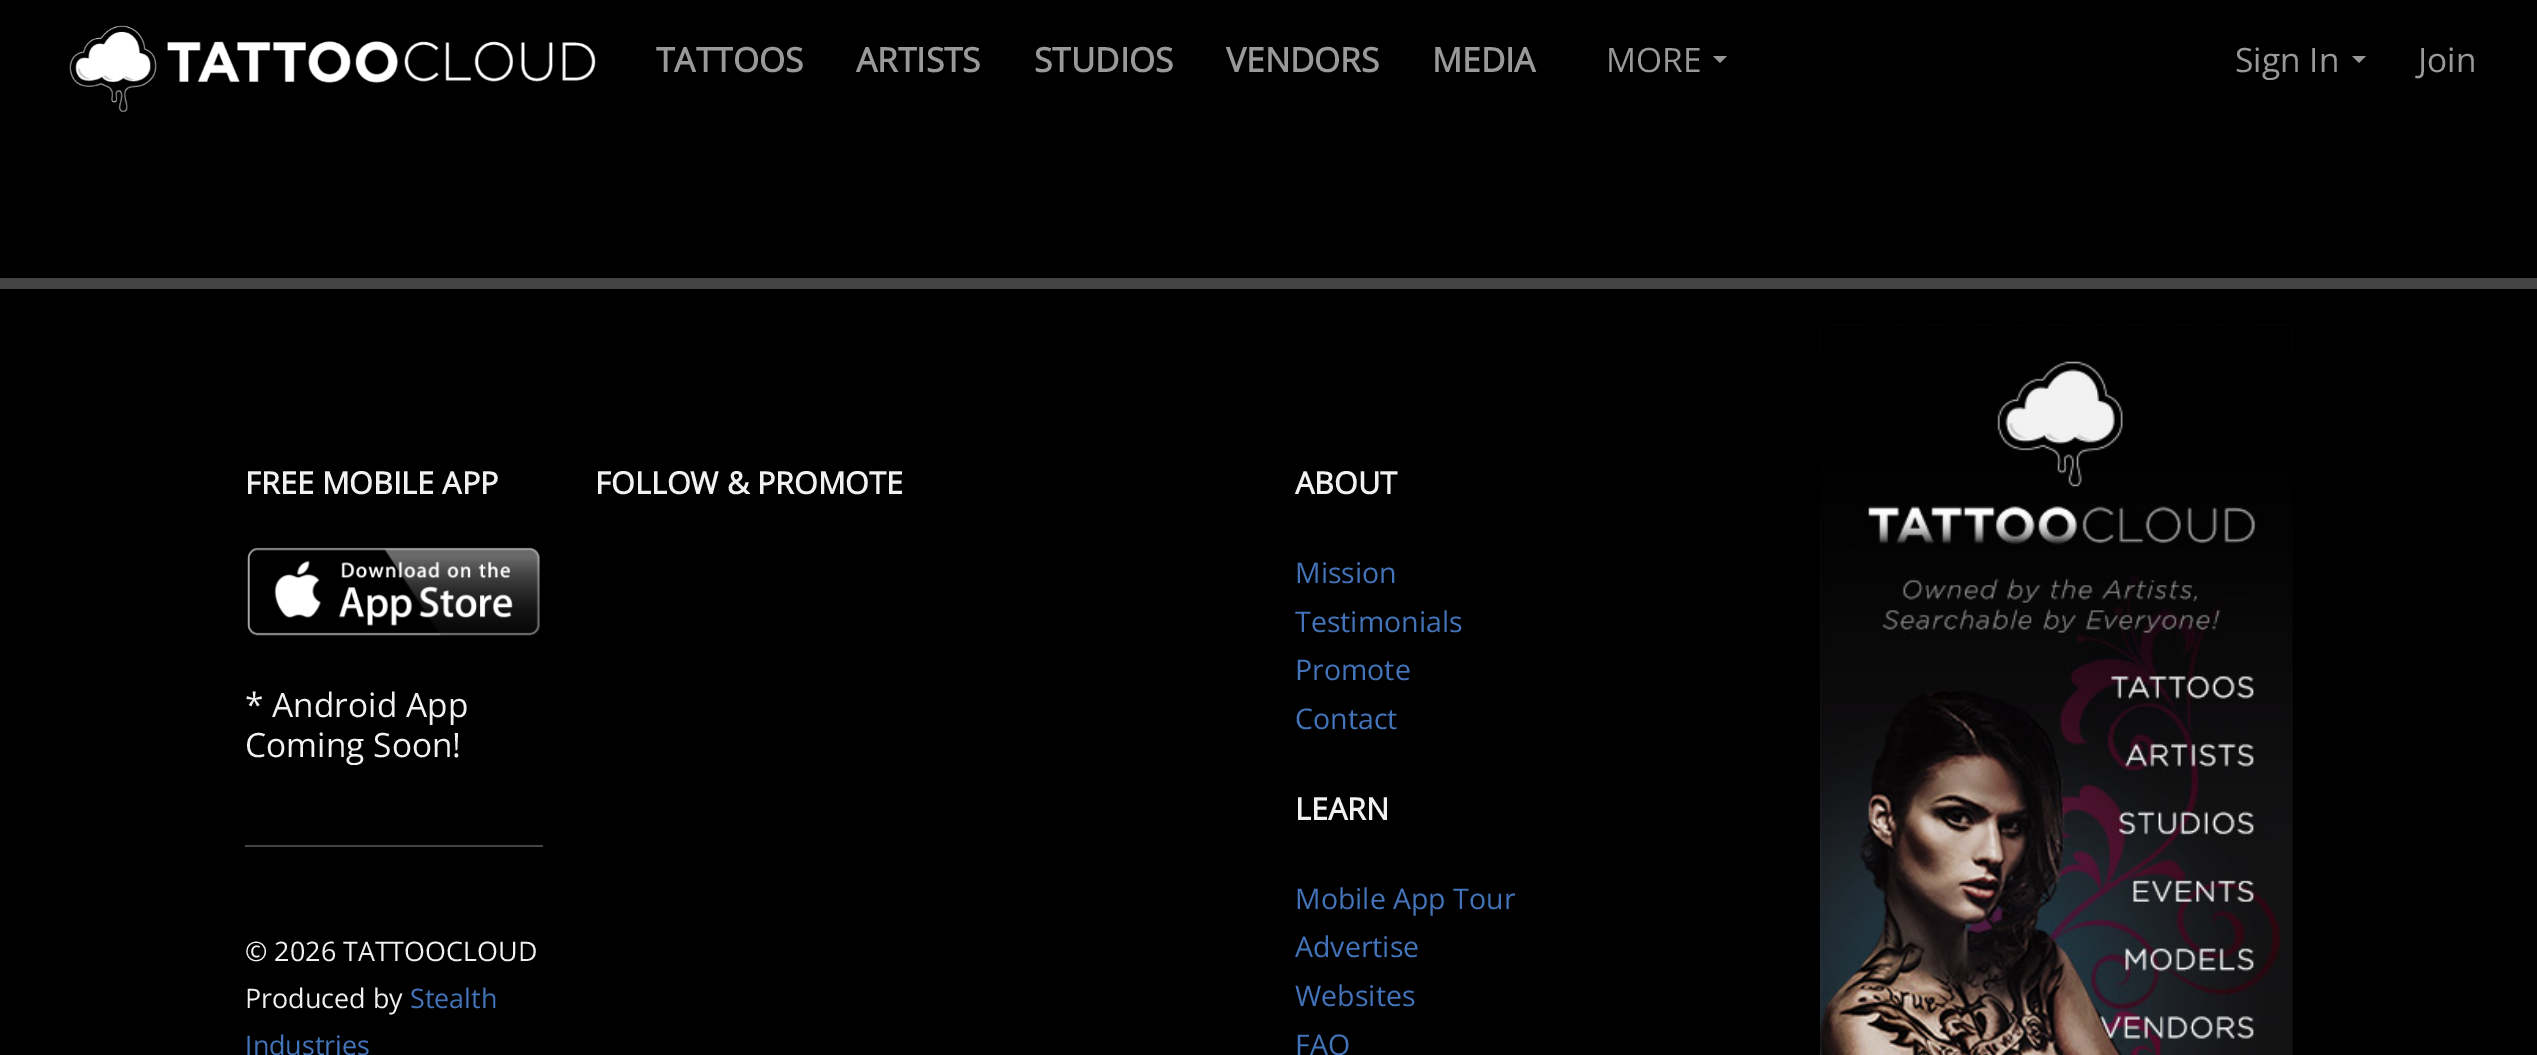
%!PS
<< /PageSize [2537 1055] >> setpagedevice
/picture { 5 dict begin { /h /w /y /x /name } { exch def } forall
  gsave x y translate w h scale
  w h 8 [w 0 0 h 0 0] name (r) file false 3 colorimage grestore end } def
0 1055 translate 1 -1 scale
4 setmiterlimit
0 setgray
0 0 2537 1055 rectfill
(img1.rgb) 69 25 527 87 picture
/OpenSans-Bold [33.5 0 0 -33.5 0 0] selectfont
0.6 setgray
656 72 moveto (TATTOOS) show
856 72 moveto (ARTISTS) show
1034 72 moveto (STUDIOS) show
1226 72 moveto (VENDORS) show
1432 72 moveto (MEDIA) show
/OpenSans-Regular [33.5 0 0 -33.5 0 0] selectfont
1606 72 moveto (MORE) show
newpath 1713 56 moveto 1727 56 lineto 1720 63 lineto closepath fill
2235 72 moveto (Sign In) show
newpath 2352 56 moveto 2366 56 lineto 2359 63 lineto closepath fill
2418 72 moveto (Join) show
0.267 setgray
0 278 2537 11 rectfill
/OpenSans-Bold [30.6 0 0 -30.6 0 0] selectfont
0.945 setgray
245 494 moveto (FREE MOBILE APP) show
(img2.rgb) 247 547 293 89 picture
/OpenSans-Regular [33.5 0 0 -33.5 0 0] selectfont
245 717 moveto (* Android App) show
245 757 moveto (Coming Soon!) show
0.267 setgray
245 845 298 2 rectfill
/OpenSans-Regular [26.9 0 0 -26.9 0 0] selectfont
0.945 setgray
245 961 moveto (© 2026 TATTOOCLOUD) show
245 1008 moveto (Produced by) show
0.263 0.451 0.725 setrgbcolor
410 1008 moveto (Stealth) show
245 1055 moveto (Industries) show
/OpenSans-Bold [30.6 0 0 -30.6 0 0] selectfont
0.945 setgray
595 494 moveto (FOLLOW & PROMOTE) show
1295 494 moveto (ABOUT) show
/OpenSans-Regular [28.5 0 0 -28.5 0 0] selectfont
0.263 0.451 0.725 setrgbcolor
1295 583 moveto (Mission) show
1295 632 moveto (Testimonials) show
1295 680 moveto (Promote) show
1295 729 moveto (Contact) show
/OpenSans-Bold [30.6 0 0 -30.6 0 0] selectfont
0.945 setgray
1295 820 moveto (LEARN) show
/OpenSans-Regular [28.5 0 0 -28.5 0 0] selectfont
0.263 0.451 0.725 setrgbcolor
1295 909 moveto (Mobile App Tour) show
1295 957 moveto (Advertise) show
1295 1006 moveto (Websites) show
1295 1055 moveto (FAQ) show
(img3.rgb) 1820 324 473 731 picture
showpage
